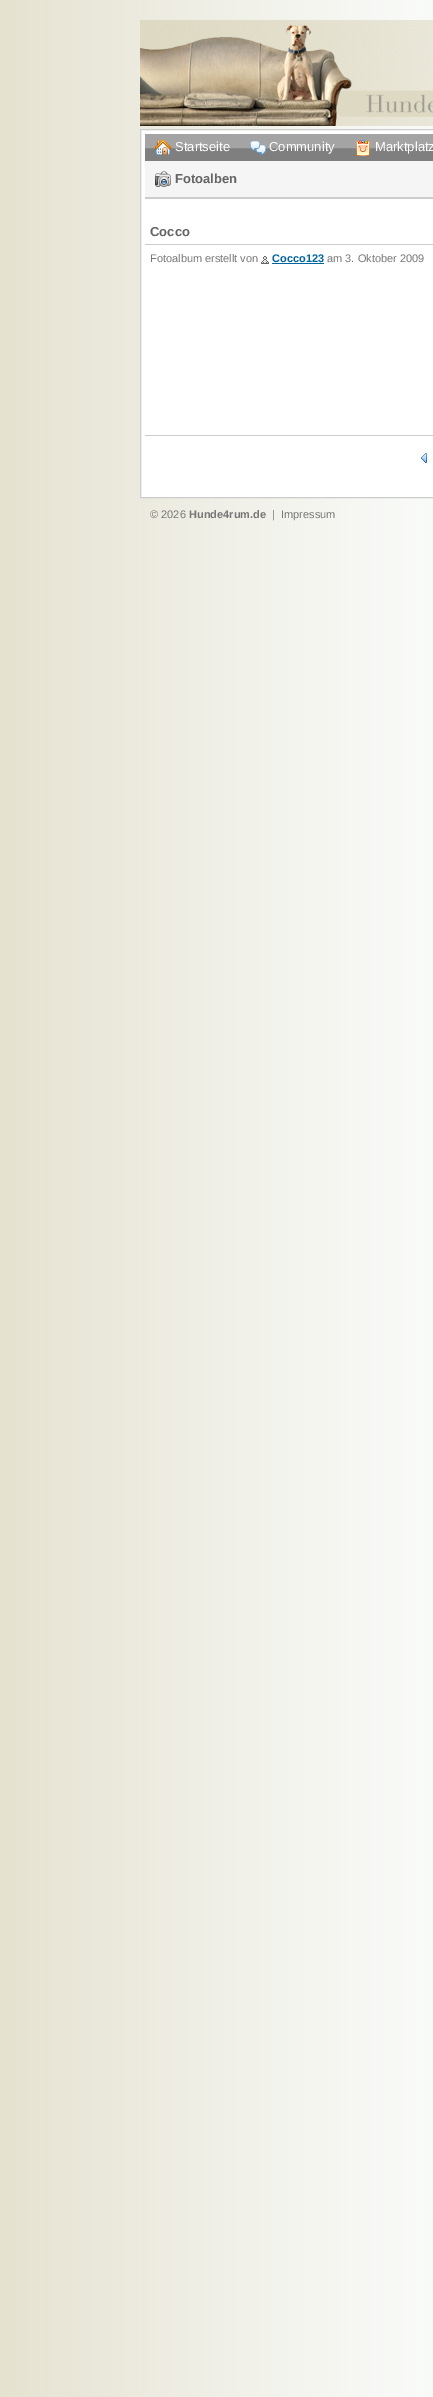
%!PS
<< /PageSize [433 2397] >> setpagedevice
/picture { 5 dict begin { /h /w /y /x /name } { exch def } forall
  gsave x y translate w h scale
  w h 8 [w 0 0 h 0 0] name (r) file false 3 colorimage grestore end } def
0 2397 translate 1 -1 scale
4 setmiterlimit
1 setgray
0 0 433 2397 rectfill
(img1.rgb) 0 0 433 2397 picture
(img2.rgb) 140 20 293 106 picture
newpath 140.5 129.5 moveto 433.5 129.5 lineto 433.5 497.5 lineto 140.5 497.5 lineto closepath gsave fill grestore
0.8 setgray
stroke
(img3.rgb) 145 134 95 27 picture
(img4.rgb) 155 140 16 15 picture
/LiberationSans-Regular [13 0 0 -13 0 0] selectfont
1 setgray
175 151 moveto (Startseite) show
(img5.rgb) 240 134 105 27 picture
(img6.rgb) 250 141 16 14 picture
269 151 moveto (Community) show
(img7.rgb) 345 134 88 27 picture
(img8.rgb) 356 140 14 16 picture
375 151 moveto (Marktplatz) show
0.961 setgray
145 161 281 36 rectfill
0.8 setgray
145 197 281 2 rectfill
(img9.rgb) 155 171 16 16 picture
/LiberationSans-Bold [13 0 0 -13 0 0] selectfont
0.396 setgray
175 183 moveto (Fotoalben) show
0.961 setgray
426 161 7 38 rectfill
0.8 setgray
426 197 7 2 rectfill
145 244 288 1 rectfill
0.396 setgray
150 236 moveto (Cocco) show
/LiberationSans-Regular [11 0 0 -11 0 0] selectfont
0.467 setgray
150 262 moveto (Fotoalbum erstellt von) show
(img10.rgb) 261 256 8 8 picture
/LiberationSans-Bold [11 0 0 -11 0 0] selectfont
0 0.396 0.624 setrgbcolor
272 262 moveto (Cocco123) show
272 263 52 1 rectfill
/LiberationSans-Regular [11 0 0 -11 0 0] selectfont
0.467 setgray
327 262 moveto (am 3. Oktober 2009) show
0.8 setgray
145 435 288 1 rectfill
(img11.rgb) 421 453 6 10 picture
0.467 setgray
150 518 moveto (© 2026) show
/LiberationSans-Bold [11 0 0 -11 0 0] selectfont
189 518 moveto (Hunde4rum.de) show
/LiberationSans-Regular [11 0 0 -11 0 0] selectfont
272 518 moveto (|) show
281 518 moveto (Impressum) show
showpage
